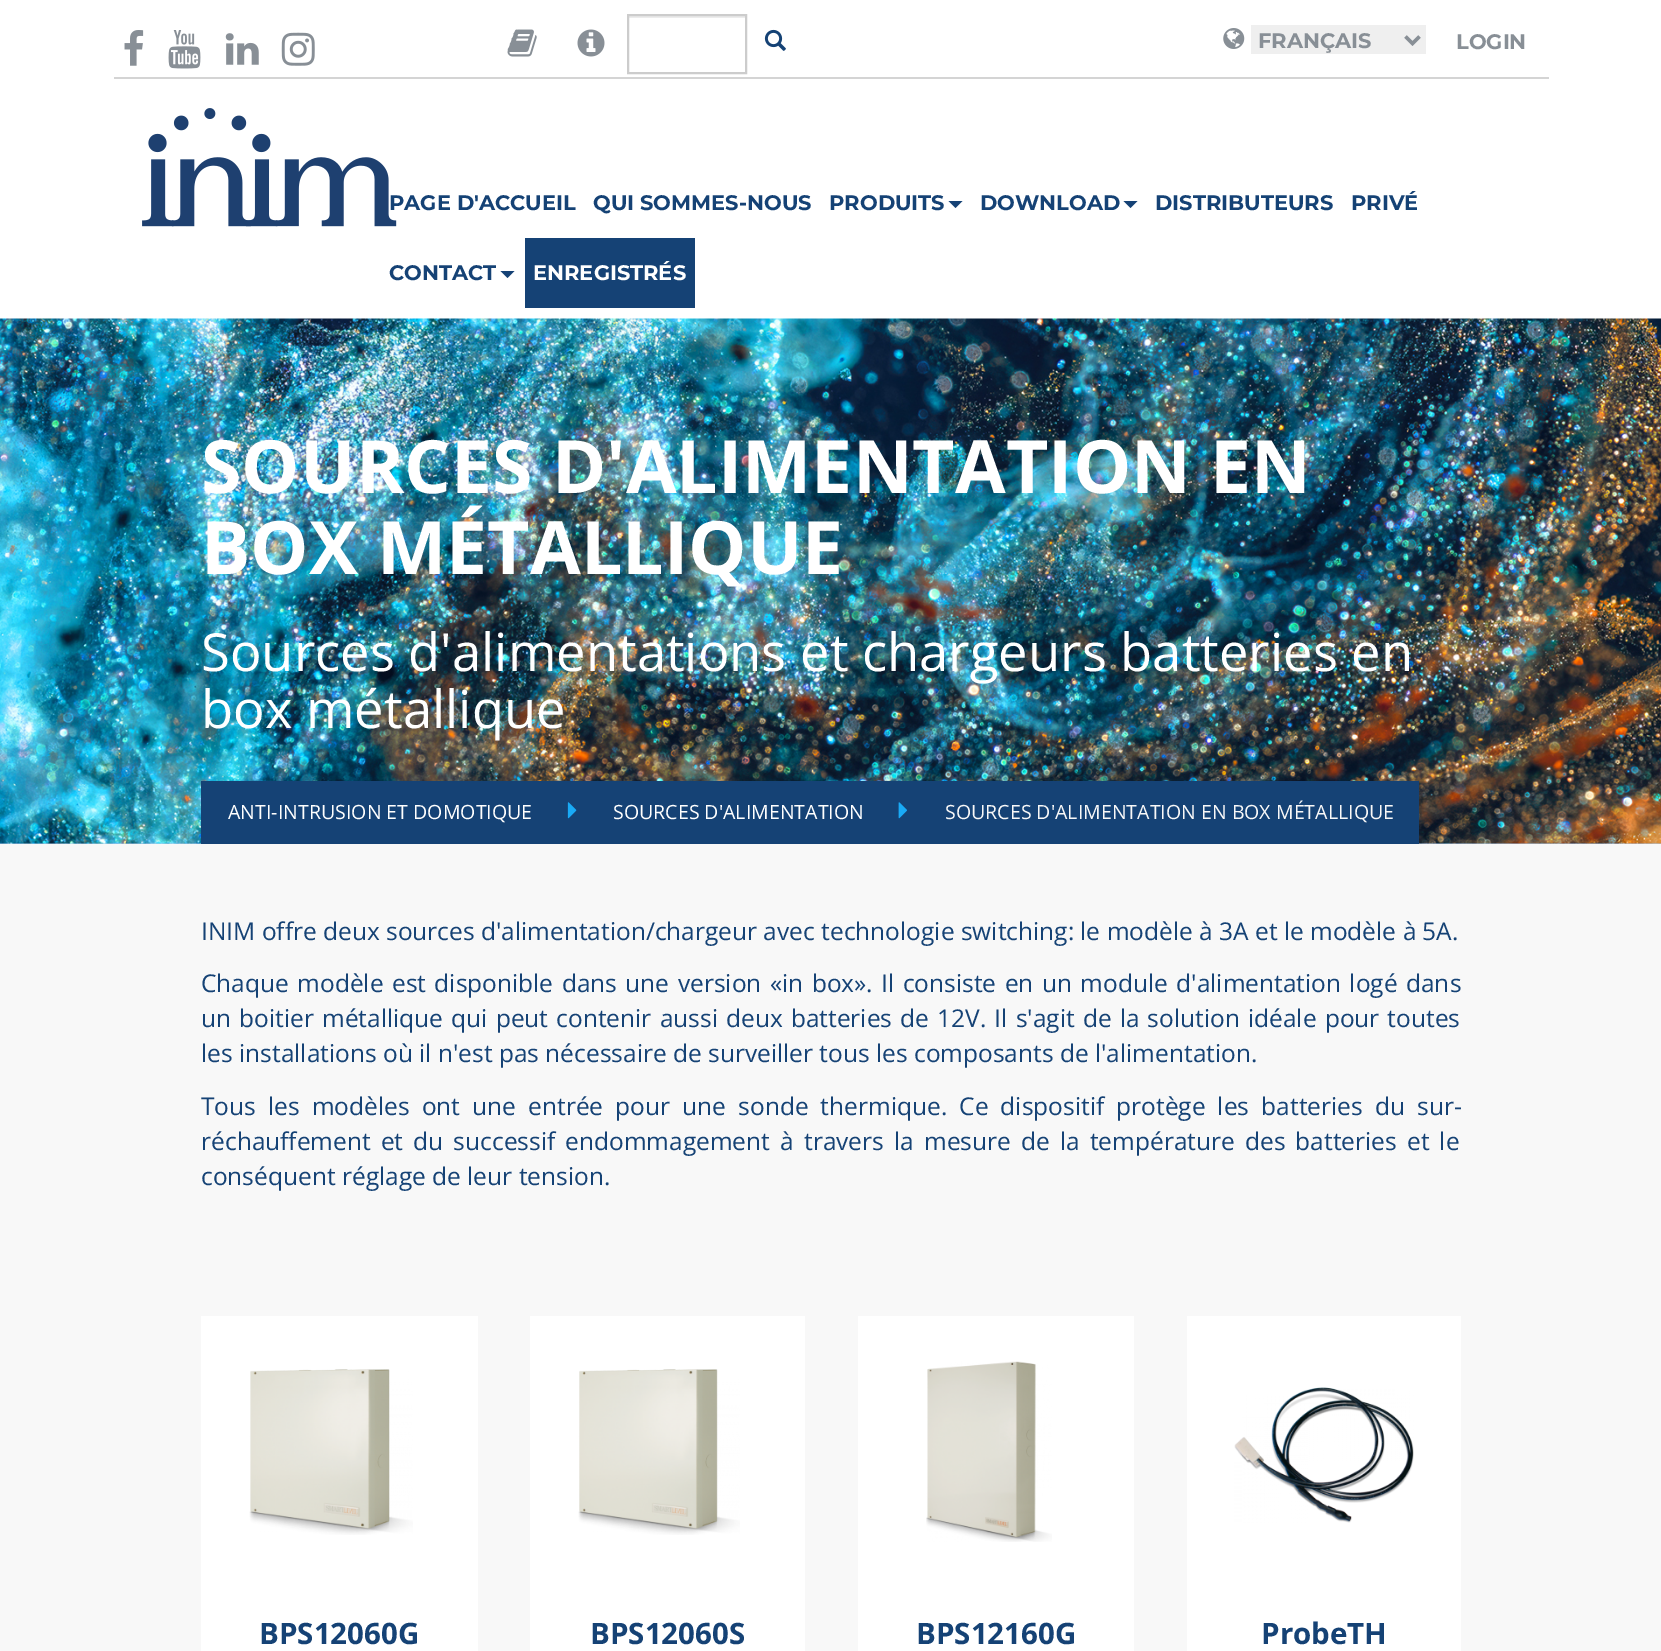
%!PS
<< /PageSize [1661 1651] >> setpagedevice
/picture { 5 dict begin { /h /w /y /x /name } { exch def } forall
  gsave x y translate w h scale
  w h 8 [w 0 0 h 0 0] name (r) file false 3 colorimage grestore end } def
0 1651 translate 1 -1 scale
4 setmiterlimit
1 setgray
0 0 1661 1651 rectfill
0.831 setgray
114 77 1435 2 rectfill
(img1.rgb) 124 30 20 36 picture
(img2.rgb) 168 30 33 39 picture
(img3.rgb) 225 33 34 32 picture
(img4.rgb) 281 32 34 34 picture
(img5.rgb) 507 29 30 28 picture
(img6.rgb) 577 29 28 28 picture
0.925 setgray
628 16 118 2 rectfill
0.8 setgray
2 setlinewidth
628 15 118 58 rectstroke
(img7.rgb) 764 29 22 22 picture
(img8.rgb) 1223 28 22 21 picture
0.937 setgray
1251 25 175 29 rectfill
0.533 0.561 0.588 setrgbcolor
3.5 setlinewidth
newpath 1405.5 36.5 moveto 1412.5 43.5 lineto 1419.5 36.5 lineto stroke
/Montserrat-Bold [21 0 0 -21 0 0] selectfont
1258 48 moveto (FRANÇAIS) show
1456 49 moveto (LOGIN) show
(img9.rgb) 142 108 255 119 picture
0.082 0.259 0.459 setrgbcolor
389 210 moveto (PAGE D'ACCUEIL) show
593 210 moveto (QUI SOMMES-NOUS) show
829 210 moveto (PRODUITS) show
newpath 948.5 201 moveto 962.5 201 lineto 955.5 208 lineto closepath fill
980 210 moveto (DOWNLOAD) show
newpath 1123.5 201 moveto 1137.5 201 lineto 1130.5 208 lineto closepath fill
1155 210 moveto (DISTRIBUTEURS) show
1351 210 moveto (PRIVÉ) show
389 280 moveto (CONTACT) show
newpath 500.5 271 moveto 514.5 271 lineto 507.5 278 lineto closepath fill
525 238 170 70 rectfill
1 setgray
533 280 moveto (ENREGISTRÉS) show
0.659 0.78 0.91 setrgbcolor
0 843 1661 1 rectfill
(img10.rgb) 0 318 1661 526 picture
/OpenSans-Bold [73.5 0 0 -73.5 0 0] selectfont
1 setgray
201 493 moveto (SOURCES D'ALIMENTATION EN) show
201 574 moveto (BOX MÉTALLIQUE) show
/OpenSans-Regular [52.5 0 0 -52.5 0 0] selectfont
201 671 moveto (Sources d'alimentations et chargeurs batteries en) show
201 728 moveto (box métallique) show
0.082 0.259 0.459 setrgbcolor
201 781 1218 63 rectfill
/OpenSans-Regular [19.6 0 0 -19.6 0 0] selectfont
1 setgray
228 819 moveto (ANTI-INTRUSION ET DOMOTIQUE) show
(img11.rgb) 567 802 10 17 picture
613 819 moveto (SOURCES D'ALIMENTATION) show
(img12.rgb) 898 802 9 17 picture
0.973 setgray
945 819 moveto (SOURCES D'ALIMENTATION EN BOX MÉTALLIQUE) show
0 844 1661 807 rectfill
/OpenSans-Regular [24.5 0 0 -24.5 0 0] selectfont
0.082 0.259 0.459 setrgbcolor
201 940 moveto (INIM offre deux sources d'alimentation/chargeur avec technologie switching: le modèle à 3A et le modèle à 5A.) show
201 992 moveto 2.1 0 32 (Chaque modèle est disponible dans une version «in box». Il consiste en un module d'alimentation logé dans) widthshow
201 1027 moveto 1.8 0 32 (un boitier métallique qui peut contenir aussi deux batteries de 12V. Il s'agit de la solution idéale pour toutes) widthshow
201 1062 moveto (les installations où il n'est pas nécessaire de surveiller tous les composants de l'alimentation.) show
201 1115 moveto 5.75 0 32 (Tous les modèles ont une entrée pour une sonde thermique. Ce dispositif protège les batteries du sur-) widthshow
201 1150 moveto 3.75 0 32 (réchauffement et du successif endommagement à travers la mesure de la température des batteries et le) widthshow
201 1185 moveto (conséquent réglage de leur tension.) show
1 setgray
201 1316 277 335 rectfill
(img13.rgb) 249 1369 164 166 picture
/OpenSans-Bold [29.5 0 0 -29.5 0 0] selectfont
0.082 0.259 0.459 setrgbcolor
259 1644 moveto (BPS12060G) show
1 setgray
530 1316 275 335 rectfill
(img14.rgb) 578 1369 162 166 picture
0.082 0.259 0.459 setrgbcolor
590 1644 moveto (BPS12060S) show
1 setgray
858 1316 276 335 rectfill
(img15.rgb) 926 1361 126 181 picture
0.082 0.259 0.459 setrgbcolor
916 1644 moveto (BPS12160G) show
1 setgray
1187 1316 274 335 rectfill
(img16.rgb) 1234 1387 180 136 picture
0.082 0.259 0.459 setrgbcolor
1261 1644 moveto (ProbeTH) show
showpage
